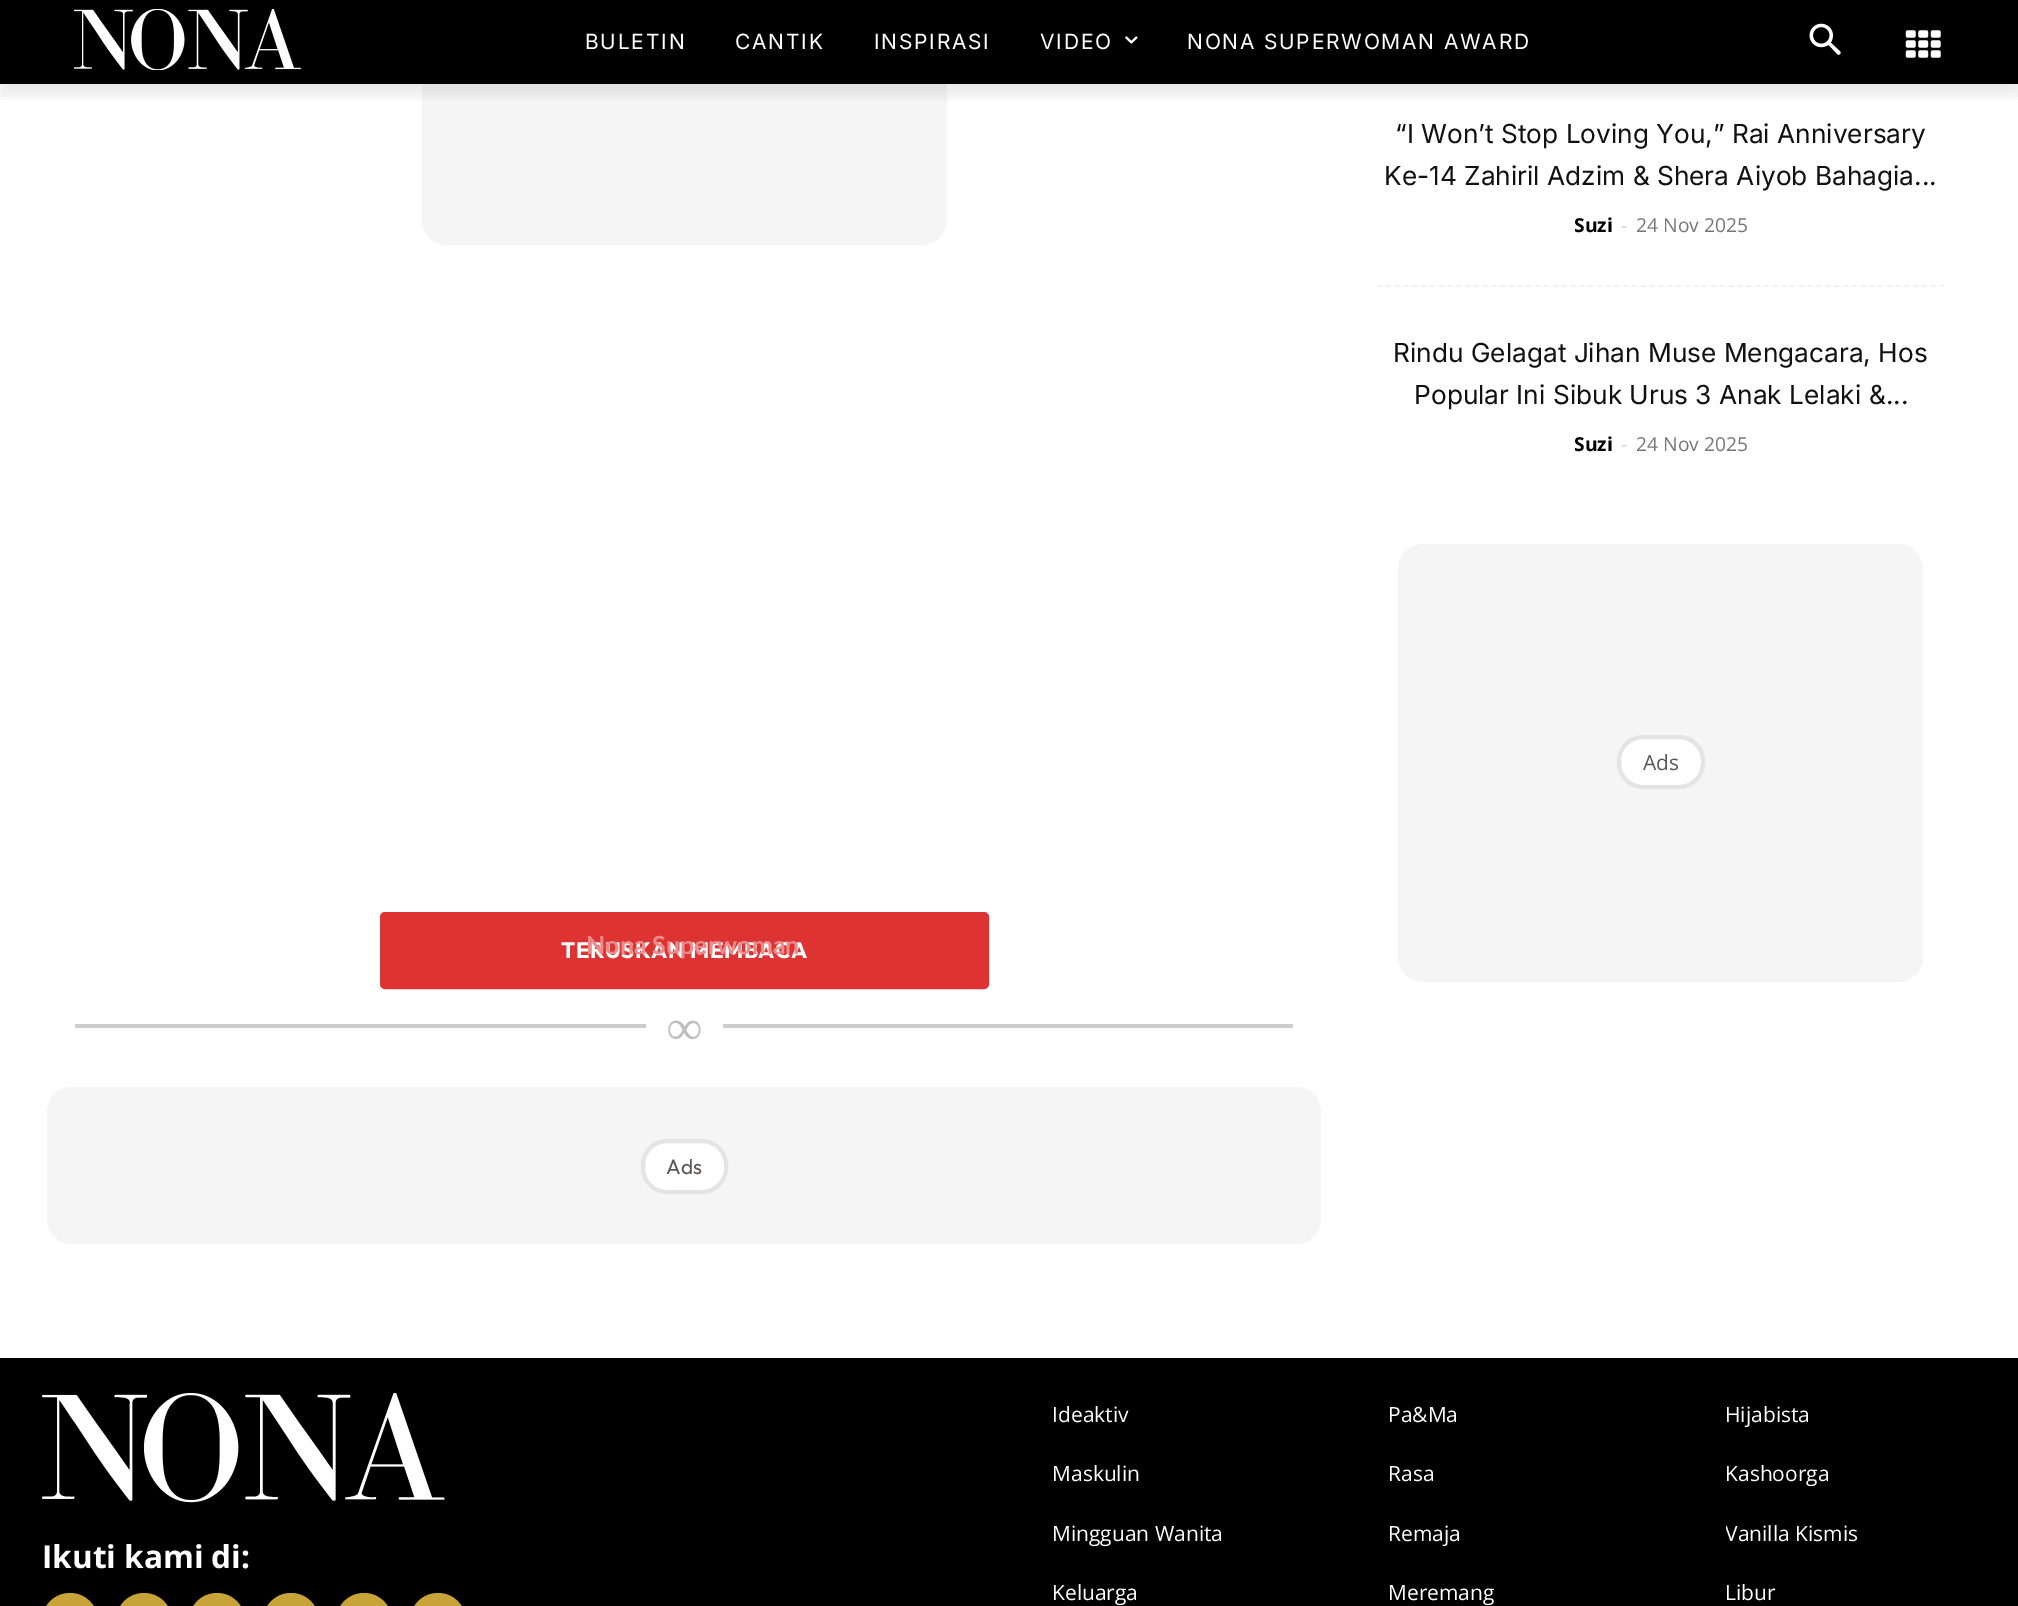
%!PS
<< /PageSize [2018 1606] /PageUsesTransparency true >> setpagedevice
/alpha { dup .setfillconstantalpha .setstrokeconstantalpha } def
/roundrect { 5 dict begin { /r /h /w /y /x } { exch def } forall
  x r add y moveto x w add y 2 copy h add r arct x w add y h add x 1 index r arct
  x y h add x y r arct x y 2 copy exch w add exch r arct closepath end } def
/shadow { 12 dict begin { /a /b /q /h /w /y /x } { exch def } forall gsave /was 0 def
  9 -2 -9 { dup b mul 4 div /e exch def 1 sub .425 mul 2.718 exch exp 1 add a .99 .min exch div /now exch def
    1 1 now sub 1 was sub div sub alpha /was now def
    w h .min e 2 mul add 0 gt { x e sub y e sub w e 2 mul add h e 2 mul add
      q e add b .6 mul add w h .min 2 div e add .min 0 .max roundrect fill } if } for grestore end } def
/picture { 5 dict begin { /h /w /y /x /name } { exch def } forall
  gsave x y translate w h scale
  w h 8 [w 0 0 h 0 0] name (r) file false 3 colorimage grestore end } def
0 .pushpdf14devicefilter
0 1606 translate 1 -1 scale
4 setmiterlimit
1 setgray
0 0 2018 1606 rectfill
0.961 setgray
422 -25 525 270 25 roundrect fill
0 setgray
0 0 2018 84 rectfill
(img1.rgb) 74 9 227 61 picture
(img4.rgb) 1905 30 36 28 picture
gsave
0 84 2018 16 rectclip
0 11 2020 84 0 7 0.08 shadow
grestore
/Inter-Regular [21 0 0 -21 0 0] selectfont
1 setgray
585 49 moveto 1.75 0 (BULETIN) ashow
735 49 moveto 1.75 0 (CANTIK) ashow
874 49 moveto 1.75 0 (INSPIRASI) ashow
1040 49 moveto 1.75 0 (VIDEO) ashow
(img2.rgb) 1125 36 13 8 picture
1187 49 moveto 1.75 0 (NONA SUPERWOMAN AWARD) ashow
(img3.rgb) 1809 23 32 32 picture
0.949 setgray
1.8 setlinewidth
[5.25 3.54] 0 setdash
newpath 1377 286 moveto 1944 286 lineto stroke
/Inter-Regular [26.25 0 0 -26.25 0 0] selectfont
0.067 setgray
1395 143 moveto (“I Won’t Stop Loving You,” Rai Anniversary) show
1384 185 moveto (Ke-14 Zahiril Adzim & Shera Aiyob Bahagia...) show
/OpenSans-Bold [19.25 0 0 -19.25 0 0] selectfont
0 setgray
1574 232 moveto (Suzi) show
/OpenSans-Regular [19.25 0 0 -19.25 0 0] selectfont
0.8 setgray
1621 232 moveto (-) show
0.463 setgray
1636 232 moveto (24 Nov 2025) show
/Inter-Regular [26.25 0 0 -26.25 0 0] selectfont
0.067 setgray
1393 362 moveto (Rindu Gelagat Jihan Muse Mengacara, Hos) show
1414 404 moveto (Popular Ini Sibuk Urus 3 Anak Lelaki &...) show
/OpenSans-Bold [19.25 0 0 -19.25 0 0] selectfont
0 setgray
1574 451 moveto (Suzi) show
/OpenSans-Regular [19.25 0 0 -19.25 0 0] selectfont
0.8 setgray
1621 451 moveto (-) show
0.463 setgray
1636 451 moveto (24 Nov 2025) show
0.961 setgray
1398 544 525 438 25 roundrect fill
1 setgray
1619 737 84 50 24 roundrect gsave fill grestore
0.894 setgray
4 setlinewidth
[] 0 setdash
stroke
/OpenSans-Regular [21 0 0 -21 0 0] selectfont
0.365 0.333 0.333 setrgbcolor
1643 770 moveto (Ads) show
0.867 0.2 0.2 setrgbcolor
381 913 607 75 4 roundrect gsave fill grestore
2 setlinewidth
stroke
/Outfit-Bold [22.4 0 0 -22.4 0 0] selectfont
1 setgray
561 958 moveto 0.5 0 (TERUSKAN MEMBACA) ashow
0.8 setgray
75 1024 571 4 rectfill
/LiberationSerif-Bold [49 0 0 -49 0 0] selectfont
0.745 setgray
667 1044 moveto (∞) show
0.8 setgray
723 1024 570 4 rectfill
0.961 setgray
47 1087 1274 157 25 roundrect fill
1 setgray
643 1141 83 51 24 roundrect gsave fill grestore
0.894 setgray
4 setlinewidth
stroke
/Outfit-Regular [21 0 0 -21 0 0] selectfont
0.365 0.333 0.333 setrgbcolor
666 1174 moveto (Ads) show
0 setgray
0 1358 2018 248 rectfill
(img5.rgb) 42 1393 403 110 picture
/OpenSans-Bold [31.5 0 0 -31.5 0 0] selectfont
1 setgray
42 1568 moveto (Ikuti kami di:) show
0.784 0.639 0.22 setrgbcolor
42 1593 56 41 28 roundrect fill
116 1593 56 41 28 roundrect fill
189 1593 56 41 28 roundrect fill
263 1593 56 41 28 roundrect fill
336 1593 56 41 28 roundrect fill
410 1593 56 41 28 roundrect fill
/OpenSans-Regular [21 0 0 -21 0 0] selectfont
1 setgray
1052 1422 moveto (Ideaktiv) show
1052 1481 moveto (Maskulin) show
1052 1541 moveto (Mingguan Wanita) show
1052 1600 moveto (Keluarga) show
1388 1422 moveto (Pa&Ma) show
1388 1481 moveto (Rasa) show
1388 1541 moveto (Remaja) show
1388 1600 moveto (Meremang) show
1725 1422 moveto (Hijabista) show
1725 1481 moveto (Kashoorga) show
gsave
1726 1393 252 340 rectclip
1725 1541 moveto (Vanilla Kismis) show
grestore
1725 1600 moveto (Libur) show
/Lato-Bold [25 0 0 -25 0 0] selectfont
0.925 0.545 0.545 setrgbcolor
586 954 moveto (Nona Superwoman) show
.poppdf14devicefilter showpage
